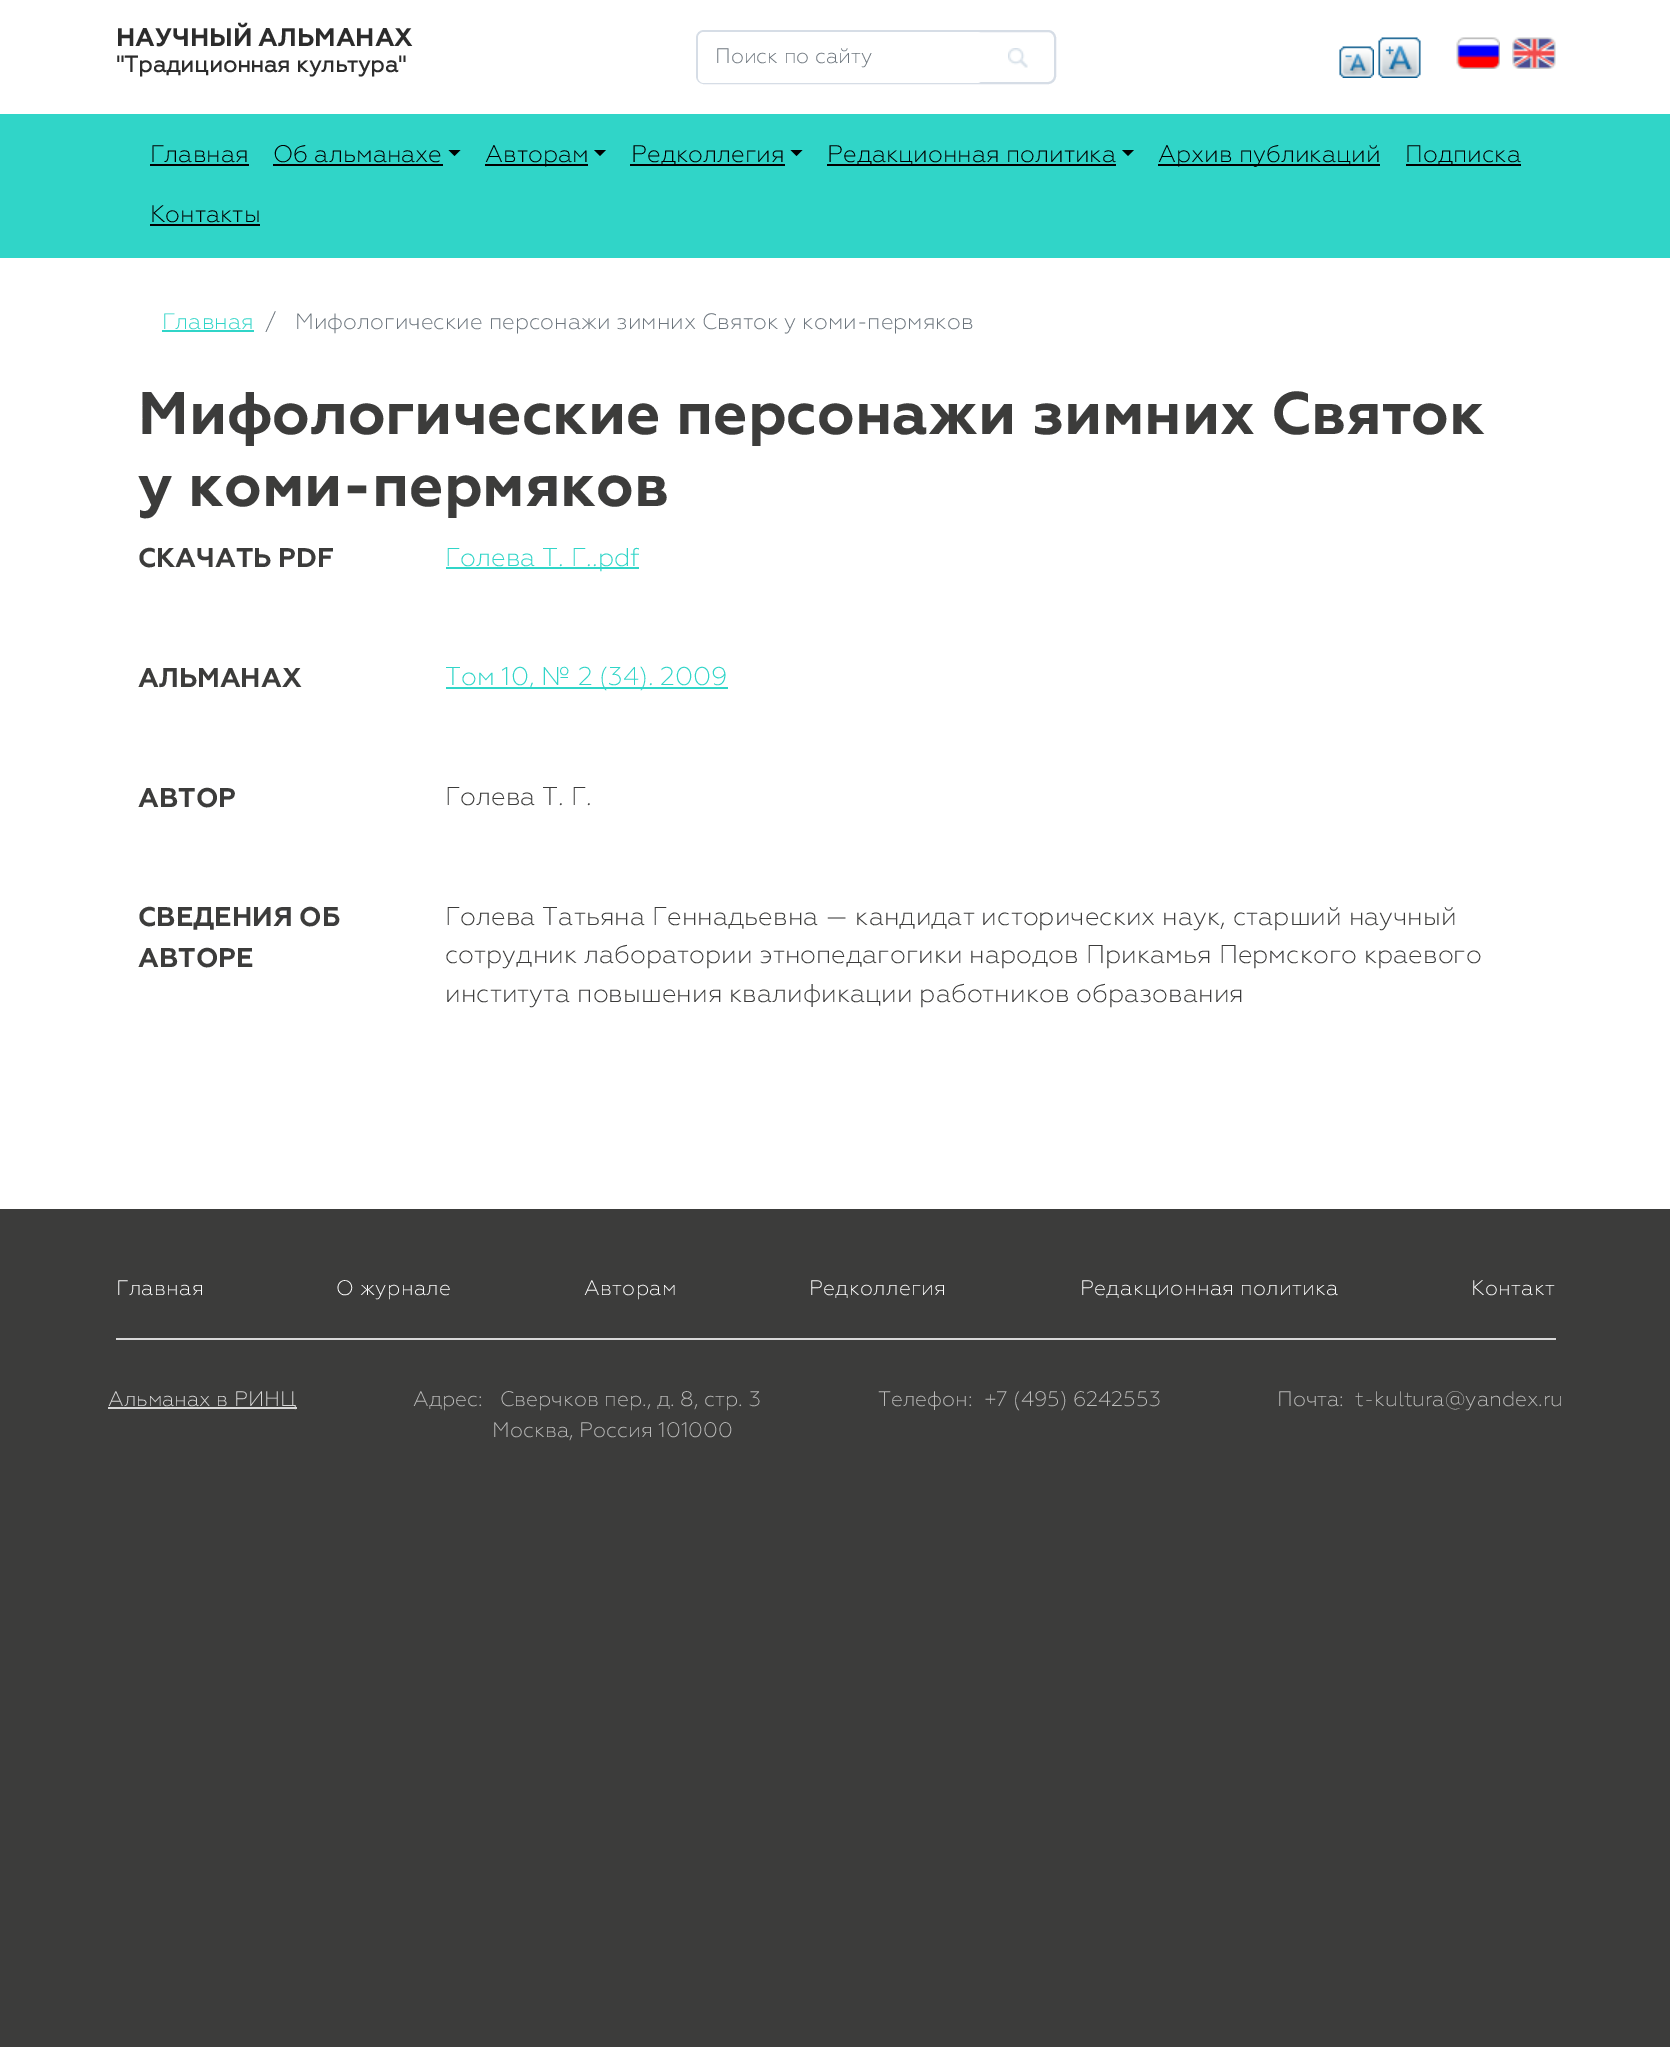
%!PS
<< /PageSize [1670 2047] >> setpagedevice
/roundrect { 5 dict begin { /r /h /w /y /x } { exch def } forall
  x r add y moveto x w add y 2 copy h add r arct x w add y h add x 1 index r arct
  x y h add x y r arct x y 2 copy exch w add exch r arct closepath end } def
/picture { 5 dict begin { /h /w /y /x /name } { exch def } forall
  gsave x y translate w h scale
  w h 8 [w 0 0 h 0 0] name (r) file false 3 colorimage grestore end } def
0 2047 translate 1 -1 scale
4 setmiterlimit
0.235 0.235 0.231 setrgbcolor
0 0 1670 2047 rectfill
1 setgray
0 0 1670 1209 rectfill
/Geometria-Bold [25.5 0 0 -25.5 0 0] selectfont
0.173 setgray
116 46 moveto (НАУЧНЫЙ АЛЬМАНАХ) show
/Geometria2-Bold [22.5 0 0 -22.5 0 0] selectfont
116 72 moveto ("Традиционная культура") show
0.839 0.867 0.902 setrgbcolor
2 setlinewidth
697 31 358 52 7 roundrect stroke
1 setgray
698 32 285 51 6 roundrect fill
/Geometria-Light [21 0 0 -21 0 0] selectfont
0.424 0.459 0.49 setrgbcolor
715 63 moveto (Поиск по сайту) show
(img1.rgb) 1008 48 20 20 picture
(img2.rgb) 1339 46 35 32 picture
(img3.rgb) 1378 37 43 41 picture
(img4.rgb) 1456 37 44 32 picture
(img5.rgb) 1512 37 44 32 picture
0.188 0.835 0.784 setrgbcolor
0 114 1670 144 rectfill
/Geometria-Light [24 0 0 -24 0 0] selectfont
0 setgray
150 162 moveto (Главная) show
150 164 99 2 rectfill
273 162 moveto (Об альманахе) show
273 164 170 2 rectfill
newpath 448.5 150 moveto 460.5 150 lineto 454.5 156 lineto closepath fill
485 164 103 2 rectfill
485 162 moveto (Авторам) show
newpath 594 150 moveto 606 150 lineto 600 156 lineto closepath fill
630 164 155 2 rectfill
631 162 moveto (Редколлегия) show
newpath 790.5 150 moveto 802.5 150 lineto 796.5 156 lineto closepath fill
827 164 289 2 rectfill
827 162 moveto (Редакционная политика) show
newpath 1122 150 moveto 1134 150 lineto 1128 156 lineto closepath fill
1158 164 222 2 rectfill
1158 162 moveto (Архив публикаций) show
1406 164 115 2 rectfill
1405 162 moveto (Подписка) show
150 222 moveto (Контакты) show
150 224 110 2 rectfill
/Geometria-Light [22.3 0 0 -22.3 0 0] selectfont
0.188 0.835 0.784 setrgbcolor
162 329 moveto (Главная) show
162 330 92 2 rectfill
0.424 0.459 0.49 setrgbcolor
265 329 moveto (/) show
295 329 moveto (Мифологические персонажи зимних Святок у коми-пермяков) show
/Geometria-Bold [60 0 0 -60 0 0] selectfont
0.235 0.235 0.231 setrgbcolor
138 434 moveto (Мифологические персонажи зимних Святок) show
138 506 moveto (у коми-пермяков) show
/Geometria-Bold [27 0 0 -27 0 0] selectfont
138 567 moveto (СКАЧАТЬ PDF) show
0.188 0.835 0.784 setrgbcolor
446 567 193 2 rectfill
/Geometria-Light [25.7 0 0 -25.7 0 0] selectfont
445 566 moveto (Голева Т. Г..pdf) show
/Geometria-Bold [27 0 0 -27 0 0] selectfont
0.235 0.235 0.231 setrgbcolor
138 687 moveto (АЛЬМАНАХ) show
0.188 0.835 0.784 setrgbcolor
446 687 282 2 rectfill
/Geometria-Light [25.7 0 0 -25.7 0 0] selectfont
445 685 moveto (Том 10, № 2 \(34\). 2009) show
/Geometria-Bold [27 0 0 -27 0 0] selectfont
0.235 0.235 0.231 setrgbcolor
138 807 moveto (АВТОР) show
/Geometria-Light [25.7 0 0 -25.7 0 0] selectfont
445 805 moveto (Голева Т. Г.) show
/Geometria-Bold [27 0 0 -27 0 0] selectfont
138 926 moveto (СВЕДЕНИЯ ОБ) show
138 967 moveto (АВТОРЕ) show
/Geometria-Light [25.7 0 0 -25.7 0 0] selectfont
445 925 moveto (Голева Татьяна Геннадьевна — кандидат исторических наук, старший научный) show
445 963 moveto (сотрудник лаборатории этнопедагогики народов Прикамья Пермского краевого) show
445 1002 moveto (института повышения квалификации работников образования) show
0.847 setgray
116 1338 1440 2 rectfill
/Geometria-Light [21 0 0 -21 0 0] selectfont
1 setgray
116 1295 moveto 0.3 0 (Главная) ashow
336 1295 moveto 0.3 0 (О журнале) ashow
584 1295 moveto 0.3 0 (Авторам) ashow
809 1295 moveto 0.3 0 (Редколлегия) ashow
1080 1295 moveto 0.3 0 (Редакционная политика) ashow
1471 1295 moveto 0.3 0 (Контакт) ashow
0.847 setgray
108 1407 189 2 rectfill
108 1406 moveto (Альманах в РИНЦ) show
0.733 0.733 0.729 setrgbcolor
413 1406 moveto (Адрес:   Сверчков пер., д. 8, стр. 3) show
492 1437 moveto (Москва, Россия 101000) show
878 1406 moveto (Телефон:  +7 \(495\) 6242553) show
1277 1406 moveto (Почта:  t-kultura@yandex.ru) show
showpage
